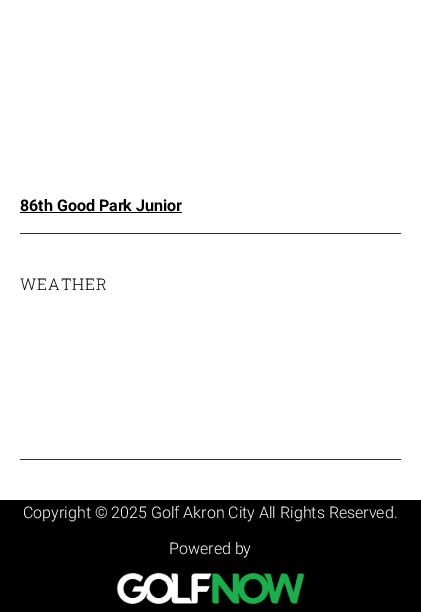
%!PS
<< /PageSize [421 612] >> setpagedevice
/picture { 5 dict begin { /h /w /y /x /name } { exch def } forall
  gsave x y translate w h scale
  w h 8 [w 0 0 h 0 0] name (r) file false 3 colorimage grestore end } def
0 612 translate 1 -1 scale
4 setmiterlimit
0 setgray
0 0 421 612 rectfill
1 setgray
0 0 421 500 rectfill
0.2 setgray
20 233 381 1 rectfill
/Roboto-Bold [16 0 0 -16 0 0] selectfont
0 setgray
20 211 moveto (86th Good Park Junior) show
20 212 162 1 rectfill
0.2 setgray
20 459 381 1 rectfill
/RobotoSlab-Light [16 0 0 -16 0 0] selectfont
0 setgray
20 290 moveto 1 0 (WEATHER) ashow
/Roboto-Light [16 0 0 -16 0 0] selectfont
1 setgray
23 518 moveto (Copyright © 2025 Golf Akron City All Rights Reserved.) show
169 554 moveto (Powered by) show
(img1.rgb) 116 572 189 32 picture
showpage
